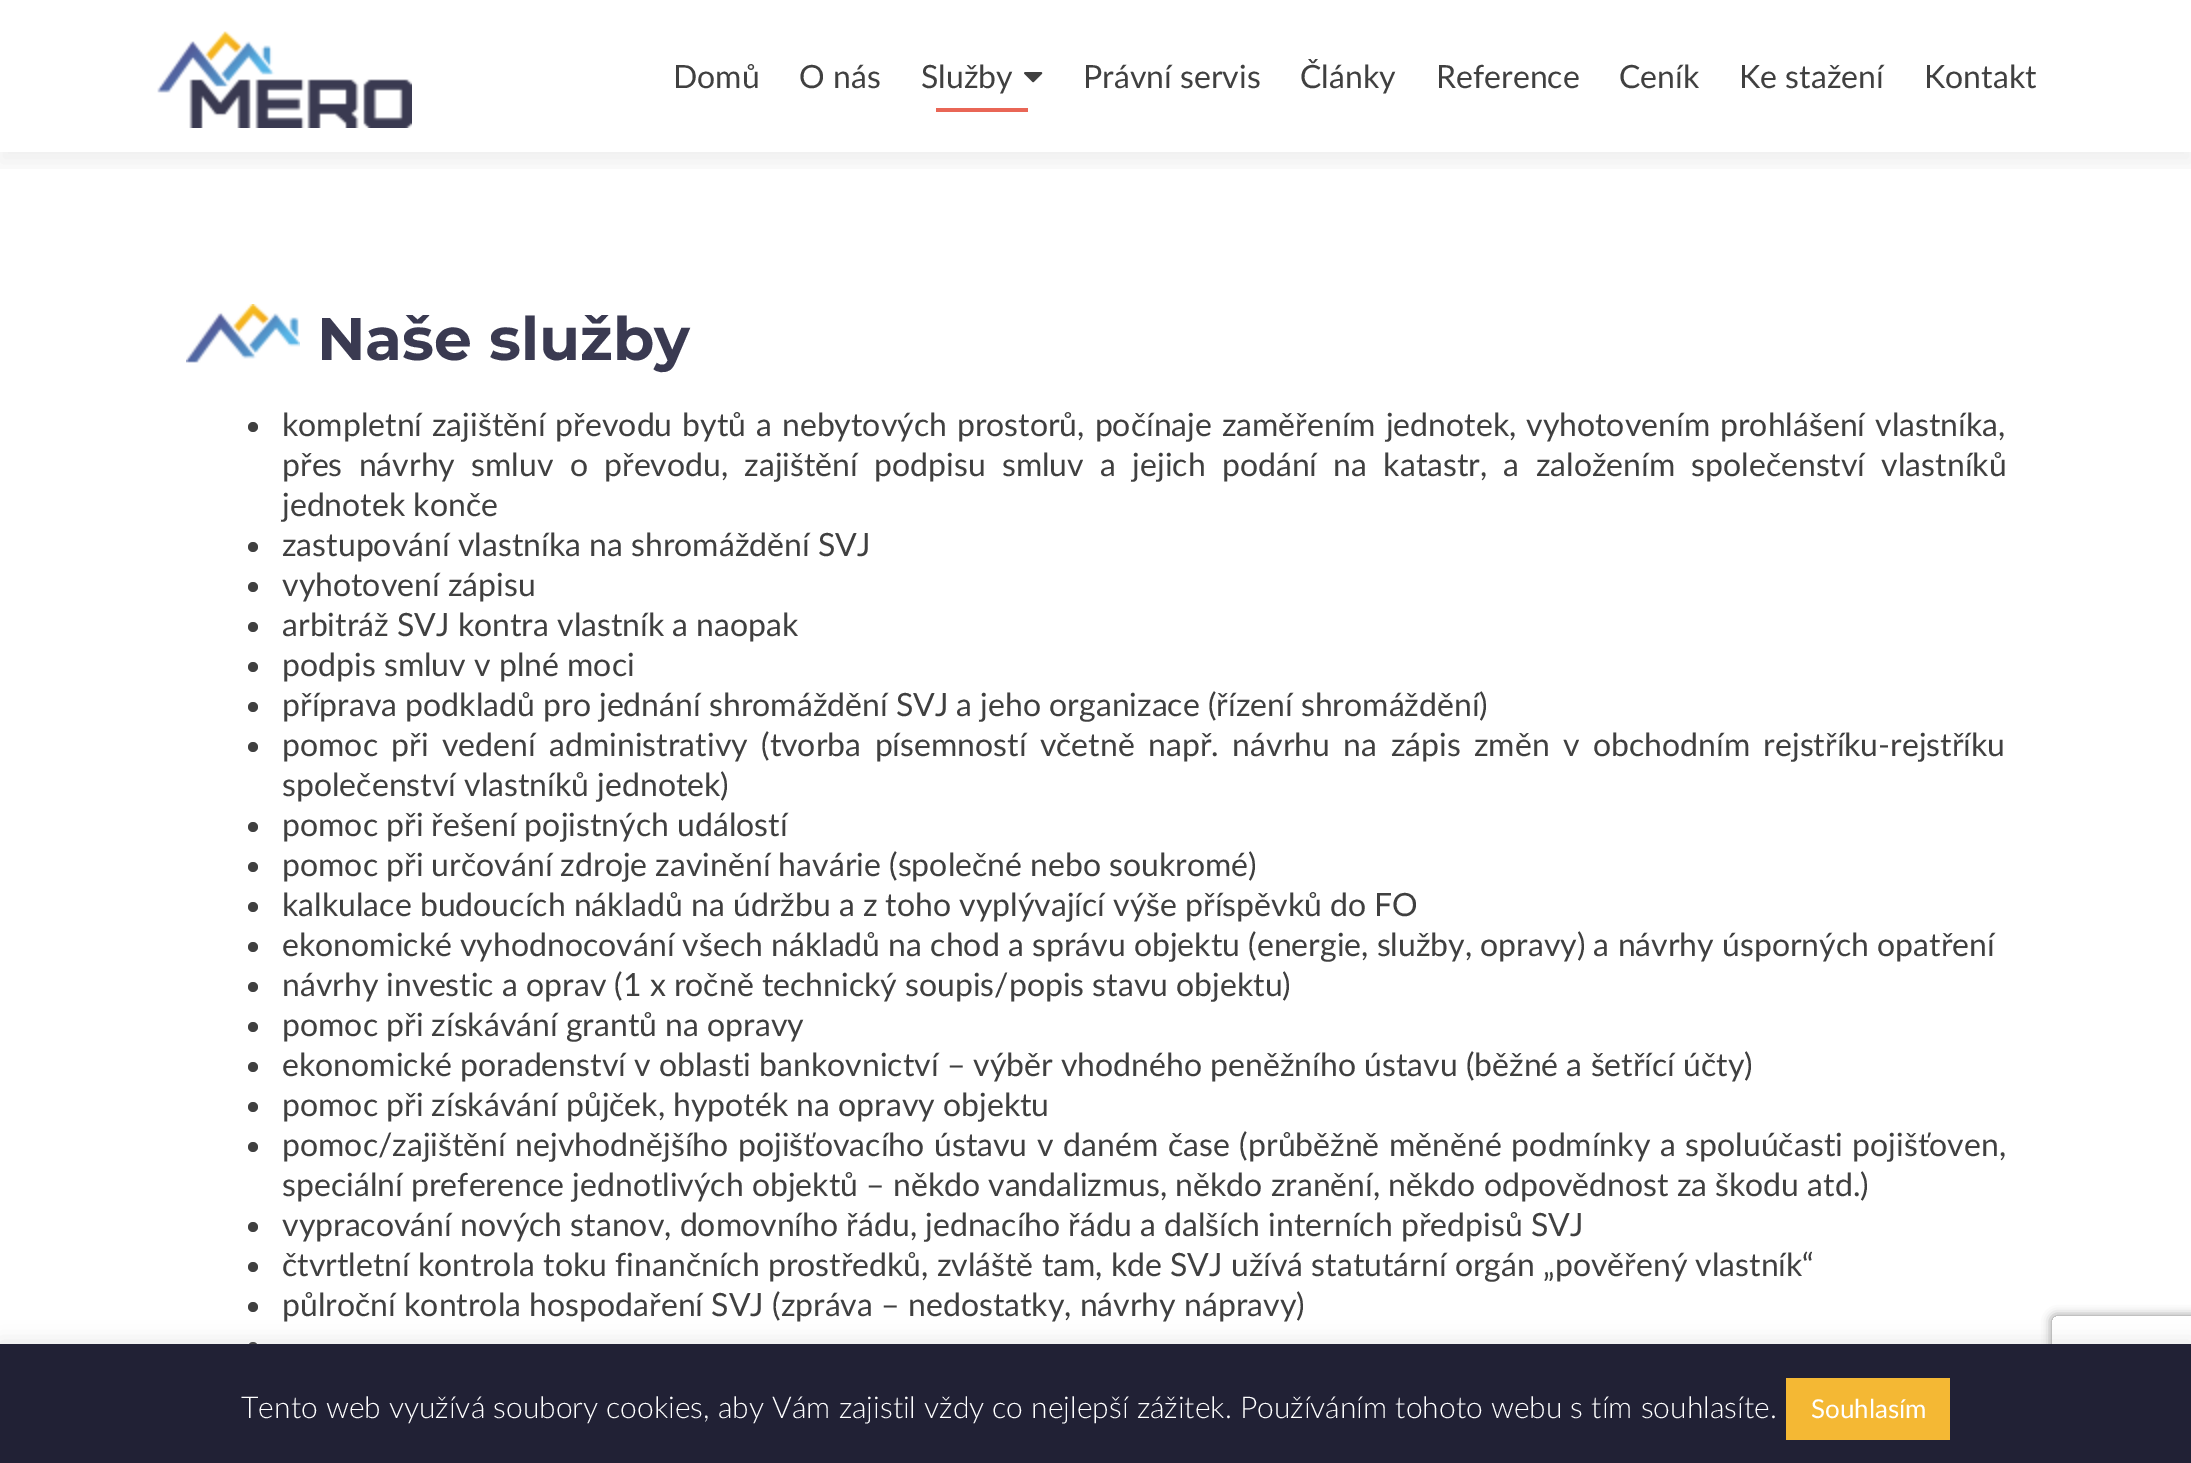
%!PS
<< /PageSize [2191 1463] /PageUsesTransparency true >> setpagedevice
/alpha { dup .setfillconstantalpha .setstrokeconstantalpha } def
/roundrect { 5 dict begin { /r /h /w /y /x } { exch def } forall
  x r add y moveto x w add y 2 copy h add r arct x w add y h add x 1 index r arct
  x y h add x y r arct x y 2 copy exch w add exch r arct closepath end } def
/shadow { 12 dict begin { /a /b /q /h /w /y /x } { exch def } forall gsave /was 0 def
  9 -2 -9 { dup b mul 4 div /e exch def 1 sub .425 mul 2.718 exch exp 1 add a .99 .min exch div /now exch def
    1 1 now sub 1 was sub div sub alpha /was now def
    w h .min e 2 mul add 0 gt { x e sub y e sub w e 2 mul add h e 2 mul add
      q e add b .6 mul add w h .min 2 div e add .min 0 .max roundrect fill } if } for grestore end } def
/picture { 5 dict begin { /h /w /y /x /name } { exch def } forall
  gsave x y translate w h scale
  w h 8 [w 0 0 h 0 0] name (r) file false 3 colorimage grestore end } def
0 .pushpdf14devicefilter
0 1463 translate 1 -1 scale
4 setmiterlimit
1 setgray
0 0 2191 1463 rectfill
gsave
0 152 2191 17 rectclip
0.196 setgray
0 10 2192 152 0 11 0.08 shadow
grestore
(img1.rgb) 157 31 255 97 picture
/Lato-Regular [32 0 0 -32 0 0] selectfont
0.251 setgray
673 88 moveto (Domů) show
799 88 moveto (O nás) show
921 88 moveto (Služby) show
(img2.rgb) 1024 72 19 11 picture
0.914 0.4 0.337 setrgbcolor
936 108 92 4 rectfill
0.251 setgray
1083 88 moveto (Právní servis) show
1300 88 moveto (Články) show
1436 88 moveto (Reference) show
1619 88 moveto (Ceník) show
1739 88 moveto (Ke stažení) show
1924 88 moveto (Kontakt) show
(img3.rgb) 186 304 114 59 picture
/Montserrat-Bold [60 0 0 -60 0 0] selectfont
0.227 0.227 0.318 setrgbcolor
317 360 moveto (Naše služby) show
0.251 setgray
newpath 253 427 5 0 360 arc closepath fill
/Lato-Regular [32 0 0 -32 0 0] selectfont
282 436 moveto 1.75 0 32 (kompletní zajištění převodu bytů a nebytových prostorů, počínaje zaměřením jednotek, vyhotovením prohlášení vlastníka,) widthshow
282 476 moveto 8.1 0 32 (přes návrhy smluv o převodu, zajištění podpisu smluv a jejich podání na katastr, a založením společenství vlastníků) widthshow
282 516 moveto (jednotek konče) show
newpath 253 547 5 0 360 arc closepath fill
282 556 moveto (zastupování vlastníka na shromáždění SVJ) show
newpath 253 587 5 0 360 arc closepath fill
282 596 moveto (vyhotovení zápisu) show
newpath 253 627 5 0 360 arc closepath fill
282 636 moveto (arbitráž SVJ kontra vlastník a naopak) show
newpath 253 667 5 0 360 arc closepath fill
282 676 moveto (podpis smluv v plné moci) show
newpath 253 707 5 0 360 arc closepath fill
282 716 moveto (příprava podkladů pro jednání shromáždění SVJ a jeho organizace \(řízení shromáždění\)) show
newpath 253 747 5 0 360 arc closepath fill
282 756 moveto 5.25 0 32 (pomoc při vedení administrativy \(tvorba písemností včetně např. návrhu na zápis změn v obchodním rejstříku-rejstříku) widthshow
282 796 moveto (společenství vlastníků jednotek\)) show
newpath 253 827 5 0 360 arc closepath fill
282 836 moveto (pomoc při řešení pojistných událostí) show
newpath 253 867 5 0 360 arc closepath fill
282 876 moveto (pomoc při určování zdroje zavinění havárie \(společné nebo soukromé\)) show
newpath 253 907 5 0 360 arc closepath fill
282 916 moveto (kalkulace budoucích nákladů na údržbu a z toho vyplývající výše příspěvků do FO) show
newpath 253 947 5 0 360 arc closepath fill
282 956 moveto (ekonomické vyhodnocování všech nákladů na chod a správu objektu \(energie, služby, opravy\) a návrhy úsporných opatření) show
newpath 253 987 5 0 360 arc closepath fill
282 996 moveto (návrhy investic a oprav \(1 x ročně technický soupis/popis stavu objektu\)) show
newpath 253 1027 5 0 360 arc closepath fill
282 1036 moveto (pomoc při získávání grantů na opravy) show
newpath 253 1067 5 0 360 arc closepath fill
282 1076 moveto (ekonomické poradenství v oblasti bankovnictví – výběr vhodného peněžního ústavu \(běžné a šetřící účty\)) show
newpath 253 1107 5 0 360 arc closepath fill
282 1116 moveto (pomoc při získávání půjček, hypoték na opravy objektu) show
newpath 253 1147 5 0 360 arc closepath fill
282 1156 moveto 1.5 0 32 (pomoc/zajištění nejvhodnějšího pojišťovacího ústavu v daném čase \(průběžně měněné podmínky a spoluúčasti pojišťoven,) widthshow
282 1196 moveto (speciální preference jednotlivých objektů – někdo vandalizmus, někdo zranění, někdo odpovědnost za škodu atd.\)) show
newpath 253 1227 5 0 360 arc closepath fill
282 1236 moveto (vypracování nových stanov, domovního řádu, jednacího řádu a dalších interních předpisů SVJ) show
newpath 253 1267 5 0 360 arc closepath fill
282 1276 moveto (čtvrtletní kontrola toku finančních prostředků, zvláště tam, kde SVJ užívá statutární orgán „pověřený vlastník“) show
newpath 253 1307 5 0 360 arc closepath fill
282 1316 moveto (půlroční kontrola hospodaření SVJ \(zpráva – nedostatky, návrhy nápravy\)) show
newpath 253 1347 5 0 360 arc closepath fill
0.675 0.671 0.671 setrgbcolor
0 1342 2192 120 0 10 0.3 shadow
gsave
newpath 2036 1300 moveto 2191 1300 lineto 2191 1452 lineto 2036 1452 lineto closepath 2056 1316 moveto 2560 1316 lineto 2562 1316 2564 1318 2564 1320 curveto 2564 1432 lineto 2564 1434 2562 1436 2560 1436 curveto 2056 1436 lineto 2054 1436 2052 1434 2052 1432 curveto 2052 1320 lineto 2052 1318 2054 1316 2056 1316 curveto closepath eoclip newpath
0.502 setgray
2052 1316 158 120 4 5 1 shadow
grestore
0.129 0.129 0.208 setrgbcolor
0 1344 2191 119 rectfill
/Lato-Light [30 0 0 -30 0 0] selectfont
1 setgray
241 1418 moveto (Tento web využívá soubory cookies, aby Vám zajistil vždy co nejlepší zážitek. Používáním tohoto webu s tím souhlasíte.) show
0.957 0.722 0.204 setrgbcolor
1786 1378 164 62 rectfill
/Lato-Regular [26 0 0 -26 0 0] selectfont
1 setgray
1811 1418 moveto (Souhlasím) show
.poppdf14devicefilter showpage
